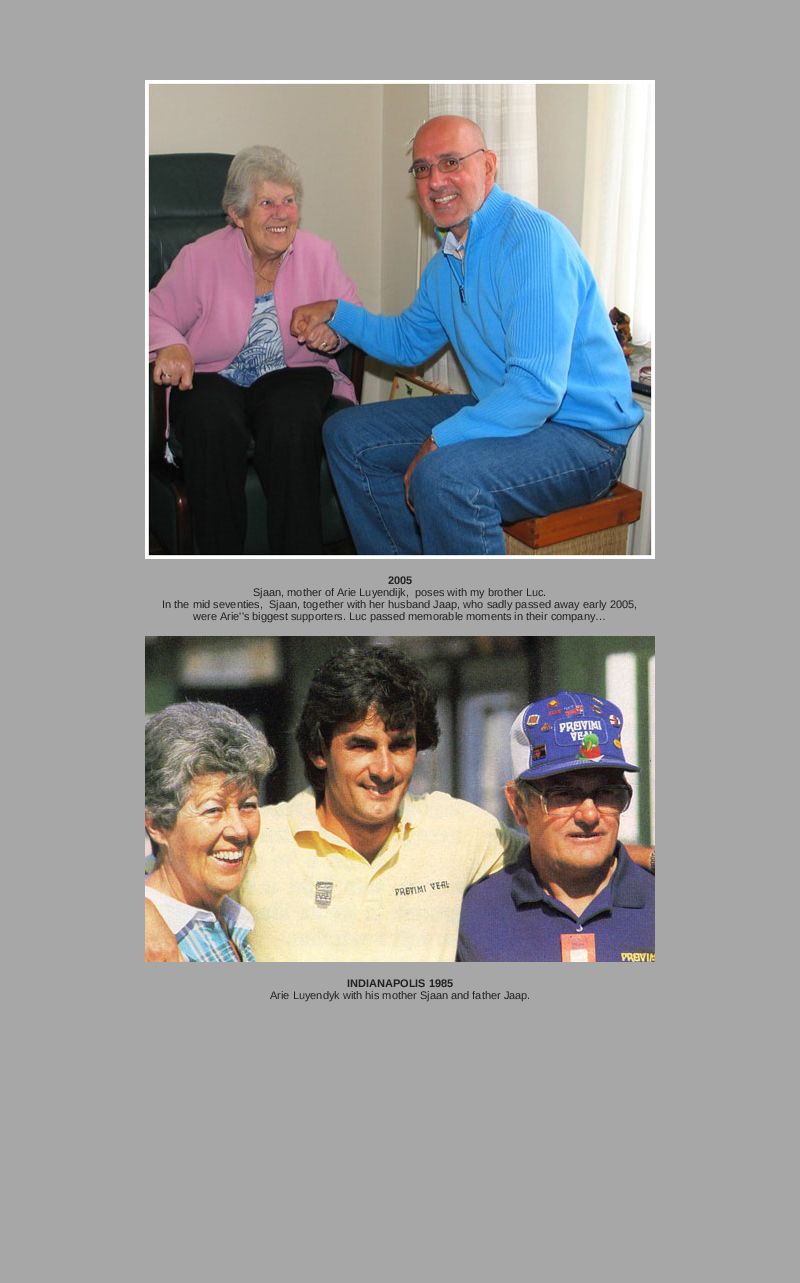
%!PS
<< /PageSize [800 1283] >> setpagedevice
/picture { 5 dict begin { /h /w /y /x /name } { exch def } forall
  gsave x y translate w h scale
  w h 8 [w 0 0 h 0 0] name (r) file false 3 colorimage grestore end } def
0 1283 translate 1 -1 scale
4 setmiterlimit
0.655 setgray
0 0 800 1283 rectfill
(img1.rgb) 145 80 510 479 picture
/LiberationSans-Bold [11 0 0 -11 0 0] selectfont
0.133 setgray
388 584 moveto (2005) show
/LiberationSans-Regular [11 0 0 -11 0 0] selectfont
253 596 moveto (Sjaan, mother of Arie Luyendijk,  poses with my brother Luc.) show
162 608 moveto (In the mid seventies,  Sjaan, together with her husband Jaap, who sadly passed away early 2005,) show
193 620 moveto (were Arie''s biggest supporters. Luc passed memorable moments in their company…) show
(img2.rgb) 145 636 510 326 picture
/LiberationSans-Bold [11 0 0 -11 0 0] selectfont
347 987 moveto (INDIANAPOLIS 1985) show
/LiberationSans-Regular [11 0 0 -11 0 0] selectfont
270 999 moveto (Arie Luyendyk with his mother Sjaan and father Jaap.) show
showpage
